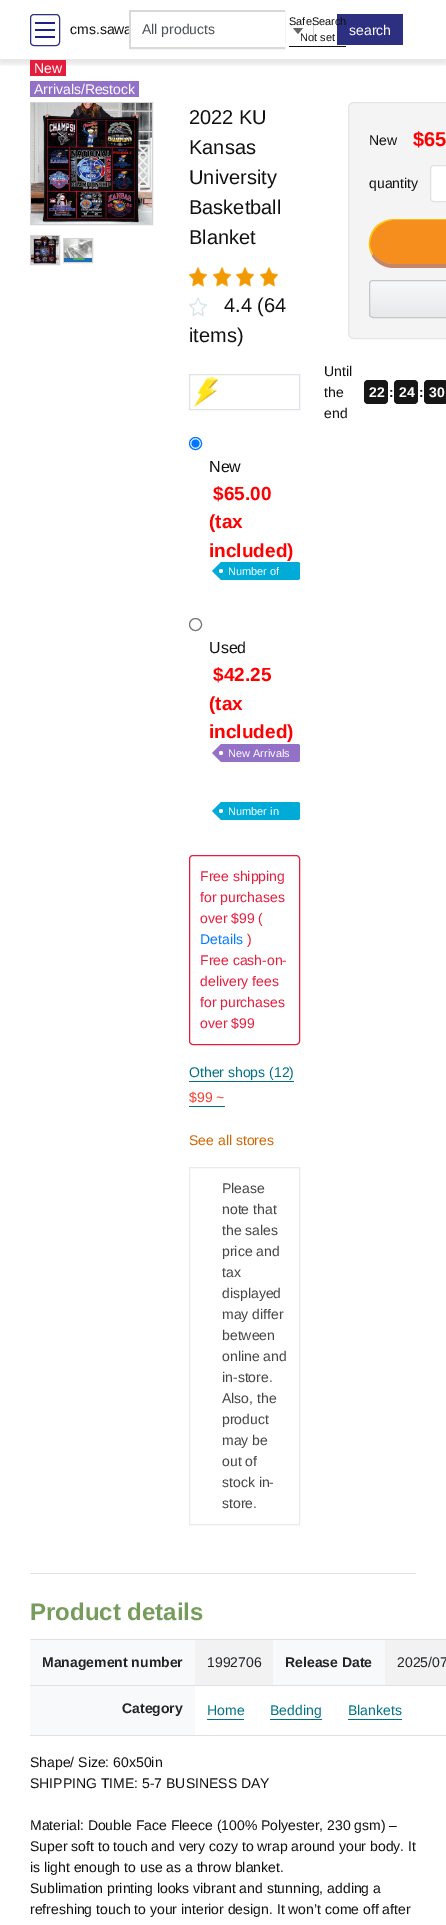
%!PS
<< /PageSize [446 1925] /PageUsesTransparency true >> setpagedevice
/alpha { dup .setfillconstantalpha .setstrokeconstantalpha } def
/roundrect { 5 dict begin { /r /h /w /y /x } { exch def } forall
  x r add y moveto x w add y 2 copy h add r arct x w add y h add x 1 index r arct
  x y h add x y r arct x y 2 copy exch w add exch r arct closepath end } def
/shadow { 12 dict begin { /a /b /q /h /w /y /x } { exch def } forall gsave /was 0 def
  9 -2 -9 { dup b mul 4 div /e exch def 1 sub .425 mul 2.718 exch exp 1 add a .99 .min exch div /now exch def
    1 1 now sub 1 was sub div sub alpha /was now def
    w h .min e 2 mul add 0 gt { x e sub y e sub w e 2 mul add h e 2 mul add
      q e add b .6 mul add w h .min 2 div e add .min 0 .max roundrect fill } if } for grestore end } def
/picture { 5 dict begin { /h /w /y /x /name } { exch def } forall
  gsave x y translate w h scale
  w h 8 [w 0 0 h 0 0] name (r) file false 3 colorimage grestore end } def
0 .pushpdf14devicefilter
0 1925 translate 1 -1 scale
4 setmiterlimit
1 setgray
0 0 446 1925 rectfill
gsave
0 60 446 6 rectclip
0 setgray
0 4 446 60 0 2.5 0.1 shadow
grestore
0.91 0.918 0.914 setrgbcolor
0 59 446 1 rectfill
0.067 setgray
289 46 57 1 rectfill
0.824 setgray
313 18 1 24 rectfill
0.176 0.188 0.506 setrgbcolor
337 14 66 31 rectfill
/LiberationSans-Regular [11 0 0 -11 0 0] selectfont
0.067 setgray
289 25 moveto (SafeSearch) show
0.4 setgray
newpath 293 28 moveto 303 28 lineto 298 34 lineto closepath fill
0.067 setgray
300 41 moveto (Not set) show
0.176 0.188 0.506 setrgbcolor
30.5 14.5 29 31 3.5 roundrect stroke
0.114 0.125 0.533 setrgbcolor
35 22 20 2 rectfill
35 29 20 2 rectfill
35 36 20 2 rectfill
/LiberationSans-Regular [14 0 0 -14 0 0] selectfont
0.067 setgray
70 34 moveto (cms.sawa) show
0.847 0.851 0.847 setrgbcolor
2 setlinewidth
130 11 154 37 rectstroke
1 setgray
131 12 154 35 rectfill
0.286 0.314 0.341 setrgbcolor
142 34 moveto (All products) show
1 setgray
349 35 moveto (search) show
0.89 0.114 0.235 setrgbcolor
30 60 36 16 rectfill
1 setgray
34 73 moveto (New) show
0.573 0.443 0.776 setrgbcolor
30 81 109 16 rectfill
1 setgray
34 94 moveto (Arrivals/Restock) show
0.831 setgray
1 setlinewidth
30.5 102.5 122 122 rectstroke
(img1.rgb) 31 103 121 121 picture
30.5 235.5 29 29 rectstroke
(img2.rgb) 31 236 28 28 picture
63.5 238.5 29 24 rectstroke
(img3.rgb) 64 239 28 23 picture
/LiberationSans-Regular [20 0 0 -20 0 0] selectfont
0.067 setgray
189 124 moveto (2022 KU) show
189 154 moveto (Kansas) show
189 184 moveto (University) show
189 214 moveto (Basketball) show
189 244 moveto (Blanket) show
(img4.rgb) 189 267 18 20 picture
(img5.rgb) 213 267 18 20 picture
(img4.rgb) 236 267 18 20 picture
(img4.rgb) 260 267 18 20 picture
(img6.rgb) 189 297 18 20 picture
224 312 moveto (4.4 \(64) show
189 342 moveto (items\)) show
0.871 0.886 0.902 setrgbcolor
189.5 374.5 110 35 rectstroke
(img7.rgb) 194 377 24 30 picture
/LiberationSans-Regular [14 0 0 -14 0 0] selectfont
0.067 setgray
324 376 moveto (Until) show
324 397 moveto (the) show
324 418 moveto (end) show
0.086 setgray
364 380 24 24 4 roundrect fill
/LiberationSans-Bold [14 0 0 -14 0 0] selectfont
1 setgray
369 397 moveto (22) show
0.067 setgray
389 397 moveto (:) show
0.086 setgray
394 380 24 24 4 roundrect fill
1 setgray
399 397 moveto (24) show
0.067 setgray
419 397 moveto (:) show
0.086 setgray
424 380 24 24 4 roundrect fill
1 setgray
429 397 moveto (30) show
0 0.459 1 setrgbcolor
newpath 195.5 443.5 6 0 360 arc closepath stroke
newpath 195.5 443.5 4 0 360 arc closepath fill
/LiberationSans-Regular [16 0 0 -16 0 0] selectfont
0.067 setgray
209 472 moveto (New) show
/LiberationSans-Bold [19 0 0 -19 0 0] selectfont
1 0 0 setrgbcolor
213 500 moveto ($65.00) show
209 528 moveto (\(tax) show
209 557 moveto (included\)) show
0 0.671 0.847 setrgbcolor
newpath 221 562 moveto 298 562 lineto 299 562 300 563 300 564 curveto 300 578 lineto 300 579 299 580 298 580 curveto 221 580 lineto closepath fill
newpath 221 562 moveto 221 580 lineto 212 571 lineto closepath fill
/LiberationSans-Regular [11 0 0 -11 0 0] selectfont
1 setgray
228 575 moveto (Number of) show
newpath 221 571 2 0 360 arc closepath fill
0.463 setgray
newpath 195.5 624.5 6 0 360 arc closepath stroke
/LiberationSans-Regular [16 0 0 -16 0 0] selectfont
0.067 setgray
209 653 moveto (Used) show
/LiberationSans-Bold [19 0 0 -19 0 0] selectfont
1 0 0 setrgbcolor
213 681 moveto ($42.25) show
209 710 moveto (\(tax) show
209 738 moveto (included\)) show
0.573 0.443 0.776 setrgbcolor
newpath 221 744 moveto 298 744 lineto 299 744 300 745 300 746 curveto 300 760 lineto 300 761 299 762 298 762 curveto 221 762 lineto closepath fill
newpath 221 744 moveto 221 762 lineto 212 753 lineto closepath fill
/LiberationSans-Regular [11 0 0 -11 0 0] selectfont
1 setgray
228 757 moveto (New Arrivals) show
newpath 221 753 2 0 360 arc closepath fill
0 0.671 0.847 setrgbcolor
newpath 221 802 moveto 298 802 lineto 299 802 300 803 300 804 curveto 300 818 lineto 300 819 299 820 298 820 curveto 221 820 lineto closepath fill
newpath 221 802 moveto 221 820 lineto 212 811 lineto closepath fill
1 setgray
228 815 moveto (Number in) show
newpath 221 811 2 0 360 arc closepath fill
0.89 0.114 0.235 setrgbcolor
189.5 855.5 110 189 3.5 roundrect stroke
/LiberationSans-Regular [14 0 0 -14 0 0] selectfont
200 881 moveto (Free shipping) show
200 902 moveto (for purchases) show
200 923 moveto (over $99 \() show
0 0.482 1 setrgbcolor
200 944 moveto (Details) show
0.89 0.114 0.235 setrgbcolor
247 944 moveto (\)) show
200 965 moveto (Free cash-on-) show
200 986 moveto (delivery fees) show
200 1007 moveto (for purchases) show
200 1028 moveto (over $99) show
0 0.443 0.522 setrgbcolor
189 1077 moveto (Other shops \(12\)) show
189 1081 105 1 rectfill
0.949 0.255 0.188 setrgbcolor
189 1102 moveto ($99 ~) show
0 0.443 0.522 setrgbcolor
189 1106 36 1 rectfill
0.8 0.4 0 setrgbcolor
189 1145 moveto (See all stores) show
0.918 setgray
189.5 1167.5 110 357 rectstroke
0.271 setgray
222 1193 moveto (Please) show
222 1214 moveto (note that) show
222 1235 moveto (the sales) show
222 1256 moveto (price and) show
222 1277 moveto (tax) show
222 1298 moveto (displayed) show
222 1319 moveto (may differ) show
222 1340 moveto (between) show
222 1361 moveto (online and) show
222 1382 moveto (in-store.) show
222 1403 moveto (Also, the) show
222 1424 moveto (product) show
222 1445 moveto (may be) show
222 1466 moveto (out of) show
222 1487 moveto (stock in-) show
222 1508 moveto (store.) show
0.957 setgray
348.5 102.5 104 236 5.5 roundrect gsave fill grestore
0.898 setgray
stroke
0.067 setgray
369 145 moveto (New) show
/LiberationSans-Bold [20 0 0 -20 0 0] selectfont
1 0 0 setrgbcolor
413 146 moveto ($65) show
/LiberationSans-Regular [14 0 0 -14 0 0] selectfont
0.067 setgray
369 188 moveto (quantity) show
1 setgray
430.5 165.5 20 36 3.5 roundrect gsave fill grestore
0.871 0.886 0.902 setrgbcolor
stroke
0.965 0.557 0.118 setrgbcolor
newpath 394 220 moveto 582 220 lineto 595 220 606 231 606 244 curveto 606 255 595 264 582 264 curveto 394 264 lineto 381 264 370 255 370 244 curveto 370 231 381 220 394 220 curveto closepath fill
1 0.757 0.027 setrgbcolor
newpath 394 219 moveto 387 219 381 222 376 226 curveto 377 227 lineto 382 223 388 220 394 220 curveto 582 220 lineto 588 220 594 223 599 227 curveto 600 226 lineto 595 222 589 219 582 219 curveto closepath fill
0.773 0.525 0.408 setrgbcolor
newpath 394 268 moveto 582 268 lineto 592 268 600 263 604 256 curveto 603 253 lineto 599 260 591 264 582 264 curveto 394 264 lineto 385 264 377 260 373 253 curveto 372 256 lineto 376 263 384 268 394 268 curveto closepath fill
1 0.757 0.027 setrgbcolor
newpath 372 255.5 moveto 366.5 246 368.5 234 376 226 curveto 377 227 lineto 370.5 234 367.5 245 372.5 253 curveto closepath fill
gsave
369 280 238 38 4 roundrect clip newpath
gsave newpath 369 281 moveto 446 281 lineto 446 317 lineto 369 317 lineto closepath clip newpath
<< /ShadingType 2 /ColorSpace /DeviceRGB /Coords [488 281 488 317] /Extend [true true] /Function << /FunctionType 2 /Domain [0 1] /C0 [0.969 0.973 0.98] /C1 [0.906 0.914 0.925] /N 1 >> >> shfill grestore
grestore
0.78 setgray
369.5 280.5 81 37 3.5 roundrect stroke
0.871 0.886 0.902 setrgbcolor
30 1573 386 1 rectfill
/LiberationSans-Bold [24 0 0 -24 0 0] selectfont
0.463 0.612 0.361 setrgbcolor
30 1620 moveto (Product details) show
0.949 setgray
195 1640 251 45 rectfill
0.973 0.976 0.98 setrgbcolor
30 1640 165 45 rectfill
/LiberationSans-Bold [14 0 0 -14 0 0] selectfont
0.129 0.145 0.161 setrgbcolor
42 1667 moveto (Management number) show
/LiberationSans-Regular [14 0 0 -14 0 0] selectfont
207 1667 moveto (1992706) show
0.973 0.976 0.98 setrgbcolor
273 1640 112 45 rectfill
/LiberationSans-Bold [14 0 0 -14 0 0] selectfont
0.129 0.145 0.161 setrgbcolor
285 1667 moveto (Release Date) show
0.871 0.886 0.902 setrgbcolor
30 1639 416 1 rectfill
/LiberationSans-Regular [14 0 0 -14 0 0] selectfont
0.129 0.145 0.161 setrgbcolor
397 1667 moveto (2025/07) show
0.973 0.976 0.98 setrgbcolor
30 1686 165 49 rectfill
/LiberationSans-Bold [14 0 0 -14 0 0] selectfont
0.129 0.145 0.161 setrgbcolor
122 1713 moveto (Category) show
0.871 0.886 0.902 setrgbcolor
30 1685 416 1 rectfill
30 1735 416 1 rectfill
/LiberationSans-Regular [14 0 0 -14 0 0] selectfont
0 0.443 0.522 setrgbcolor
207 1715 moveto (Home) show
207 1719 37 1 rectfill
270 1715 moveto (Bedding) show
270 1719 52 1 rectfill
348 1715 moveto (Blankets) show
348 1719 54 1 rectfill
0.067 setgray
30 1767 moveto (Shape/ Size: 60x50in) show
30 1788 moveto (SHIPPING TIME: 5-7 BUSINESS DAY) show
30 1830 moveto (Material: Double Face Fleece \(100% Polyester, 230 gsm\) –) show
30 1851 moveto (Super soft to touch and very cozy to wrap around your body. It) show
30 1872 moveto (is light enough to use as a throw blanket.) show
30 1893 moveto (Sublimation printing looks vibrant and stunning, adding a) show
30 1914 moveto (refreshing touch to your interior design. It won’t come off after) show
.poppdf14devicefilter showpage
